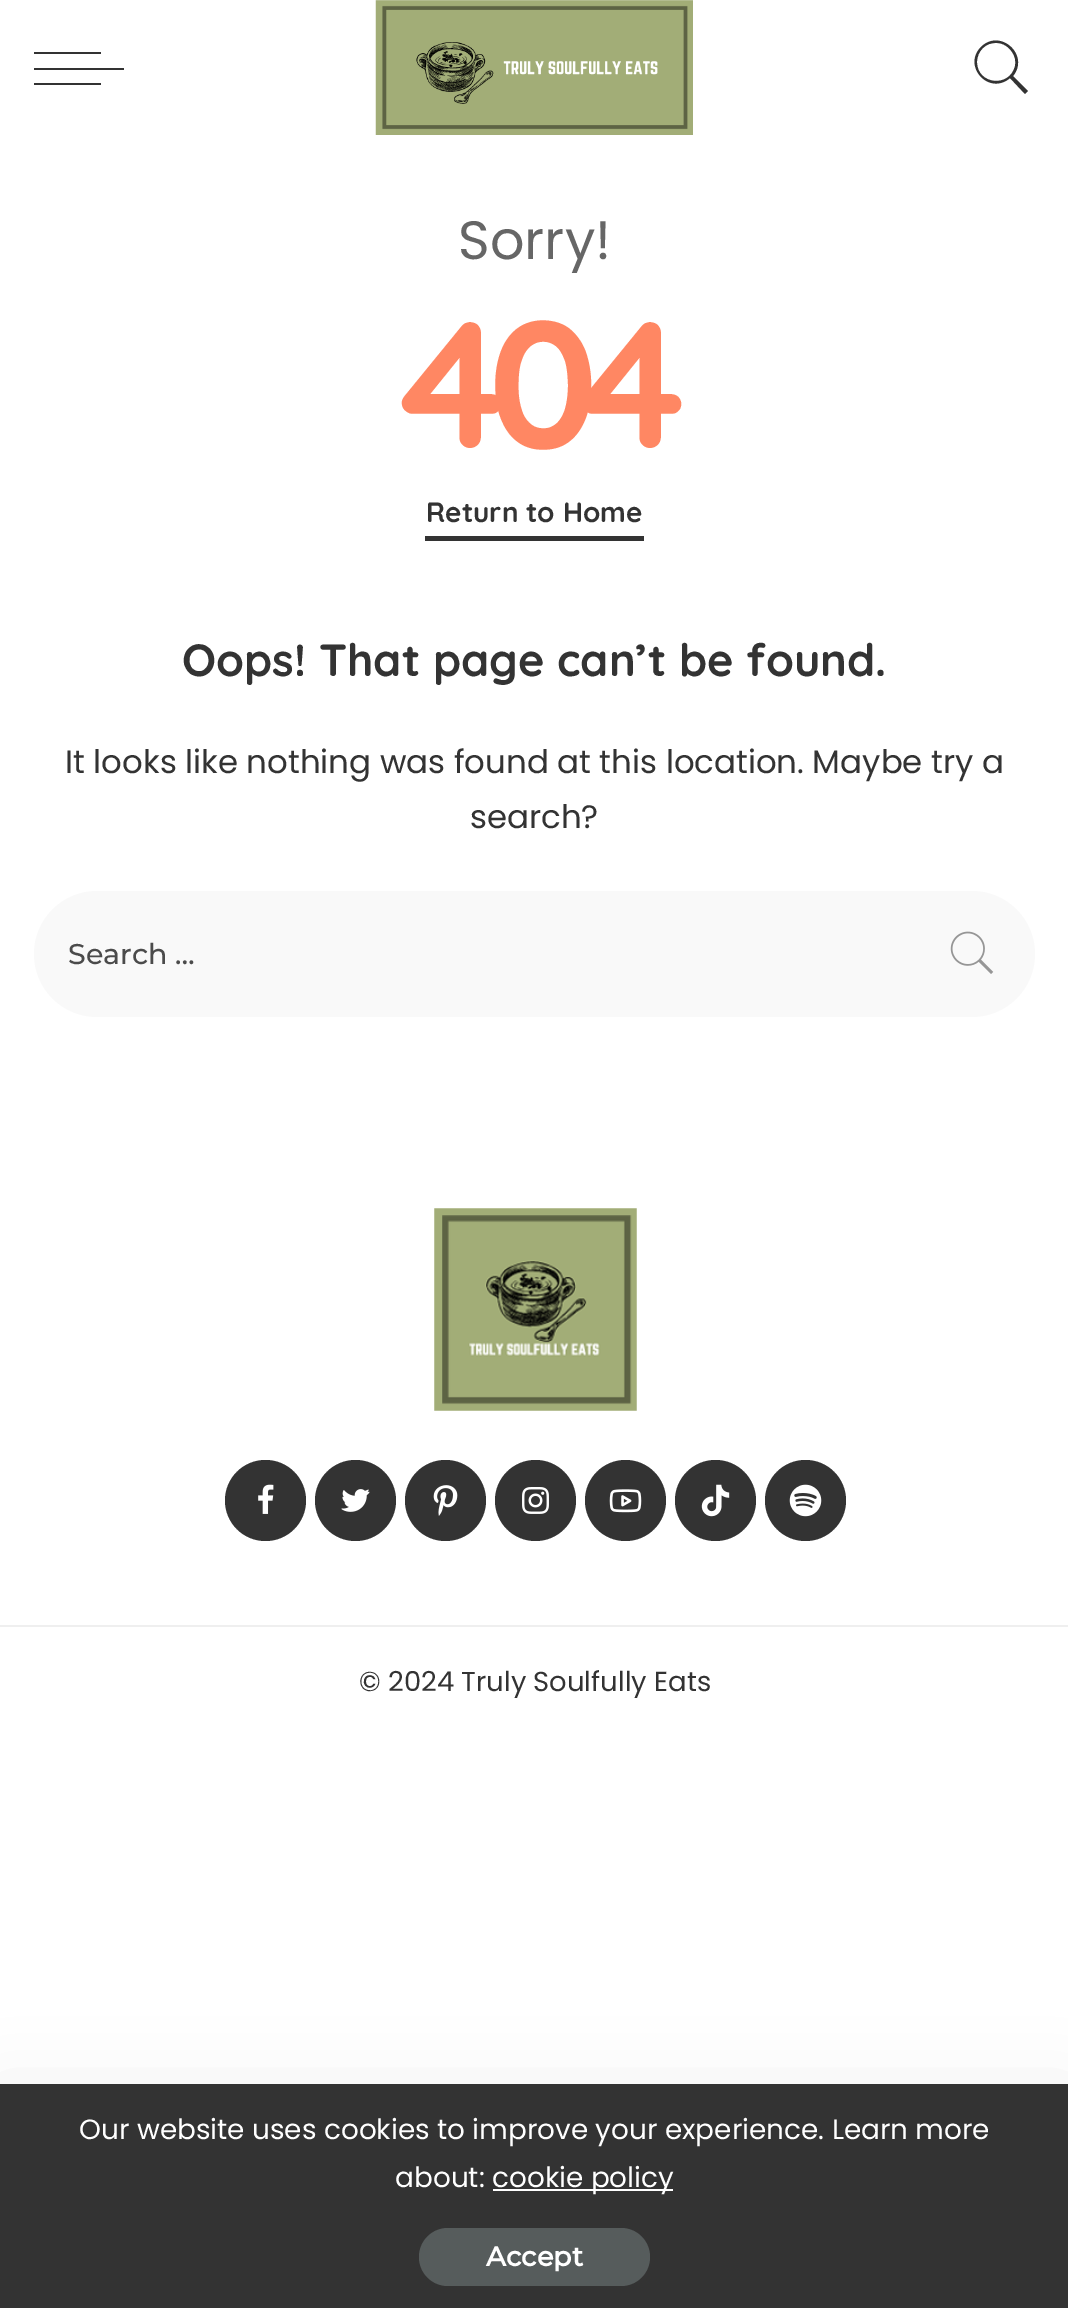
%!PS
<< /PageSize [1068 2308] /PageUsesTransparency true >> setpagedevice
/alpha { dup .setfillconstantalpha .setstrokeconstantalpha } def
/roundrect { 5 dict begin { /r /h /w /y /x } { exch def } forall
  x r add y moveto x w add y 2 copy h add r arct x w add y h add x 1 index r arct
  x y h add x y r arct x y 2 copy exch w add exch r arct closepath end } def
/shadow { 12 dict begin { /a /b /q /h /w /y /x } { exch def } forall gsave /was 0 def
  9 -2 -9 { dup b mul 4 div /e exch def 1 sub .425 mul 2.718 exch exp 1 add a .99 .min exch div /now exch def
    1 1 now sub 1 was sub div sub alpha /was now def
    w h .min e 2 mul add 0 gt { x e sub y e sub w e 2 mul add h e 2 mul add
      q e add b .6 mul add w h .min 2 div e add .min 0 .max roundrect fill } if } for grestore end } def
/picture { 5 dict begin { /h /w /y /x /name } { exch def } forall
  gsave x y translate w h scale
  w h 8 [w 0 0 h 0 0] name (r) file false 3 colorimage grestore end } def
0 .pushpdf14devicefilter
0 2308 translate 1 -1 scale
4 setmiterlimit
1 setgray
0 0 1068 2308 rectfill
0.2 setgray
34 68 90 2 rectfill
34 52 67 2 rectfill
34 83 67 2 rectfill
(img1.rgb) 375 0 318 135 picture
newpath 1028 91 moveto 1013 76 lineto 1030 55 1000 28 981 47 curveto 962 66 989 96 1010 78 curveto 1025 94 lineto closepath 977 62 moveto 977 51 986 42 997 43 curveto 1003 43 1009 47 1012 52 curveto 1015 56 1016 61 1015 66 curveto 1010 88 977 85 977 62 curveto closepath fill
/Poppins-Regular [54 0 0 -54 0 0] selectfont
0.4 setgray
458 259 moveto (Sorry!) show
/Quicksand-Bold [180 0 0 -180 0 0] selectfont
1 0.529 0.388 setrgbcolor
400 448 moveto -18 0 (404) ashow
0.2 setgray
425 536 219 5 rectfill
/Quicksand-Bold [27.9 0 0 -27.9 0 0] selectfont
426 522 moveto (Return to Home) show
/Quicksand-Bold [45 0 0 -45 0 0] selectfont
182 676 moveto (Oops! That page can’t be found.) show
/Poppins-Regular [32.4 0 0 -32.4 0 0] selectfont
65 773 moveto (It looks like nothing was found at this location. Maybe try a) show
470 828 moveto (search?) show
0.976 setgray
34 891 1001 126 63 roundrect fill
/Montserrat-Thin [28.5 0 0 -28.5 0 0] selectfont
0.294 setgray
68 964 moveto (Search …) show
(img2.rgb) 950 931 44 43 picture
(img3.rgb) 434 1208 203 203 picture
0.2 setgray
newpath 265.5 1500.5 40.5 0 360 arc closepath fill
(img4.rgb) 258 1484 16 30 picture
newpath 355.5 1500.5 40.5 0 360 arc closepath fill
(img5.rgb) 341 1489 29 23 picture
newpath 445.5 1500.5 40.5 0 360 arc closepath fill
(img6.rgb) 433 1485 25 31 picture
newpath 535.5 1500.5 40.5 0 360 arc closepath fill
(img7.rgb) 522 1487 27 27 picture
newpath 625.5 1500.5 40.5 0 360 arc closepath fill
(img8.rgb) 609 1489 33 24 picture
newpath 715.5 1500.5 40.5 0 360 arc closepath fill
(img9.rgb) 701 1484 29 33 picture
newpath 805.5 1500.5 40.5 0 360 arc closepath fill
(img10.rgb) 789 1484 33 33 picture
0.937 setgray
0 1625 1068 2 rectfill
/Poppins-Regular [27.4 0 0 -27.4 0 0] selectfont
0.2 setgray
359 1691 moveto (© 2024 Truly Soulfully Eats) show
0 setgray
0 2093 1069 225 0 34 0.07 shadow
0.2 setgray
0 2084 1068 224 rectfill
/Poppins-Regular [27.9 0 0 -27.9 0 0] selectfont
1 setgray
79 2139 moveto (Our website uses cookies to improve your experience. Learn more) show
395 2187 moveto (about:) show
493 2189 180 2 rectfill
492 2187 moveto (cookie policy) show
0.337 0.361 0.361 setrgbcolor
419 2228 231 58 29 roundrect fill
/Montserrat-Bold [27 0 0 -27 0 0] selectfont
1 setgray
486 2266 moveto (Accept) show
.poppdf14devicefilter showpage
